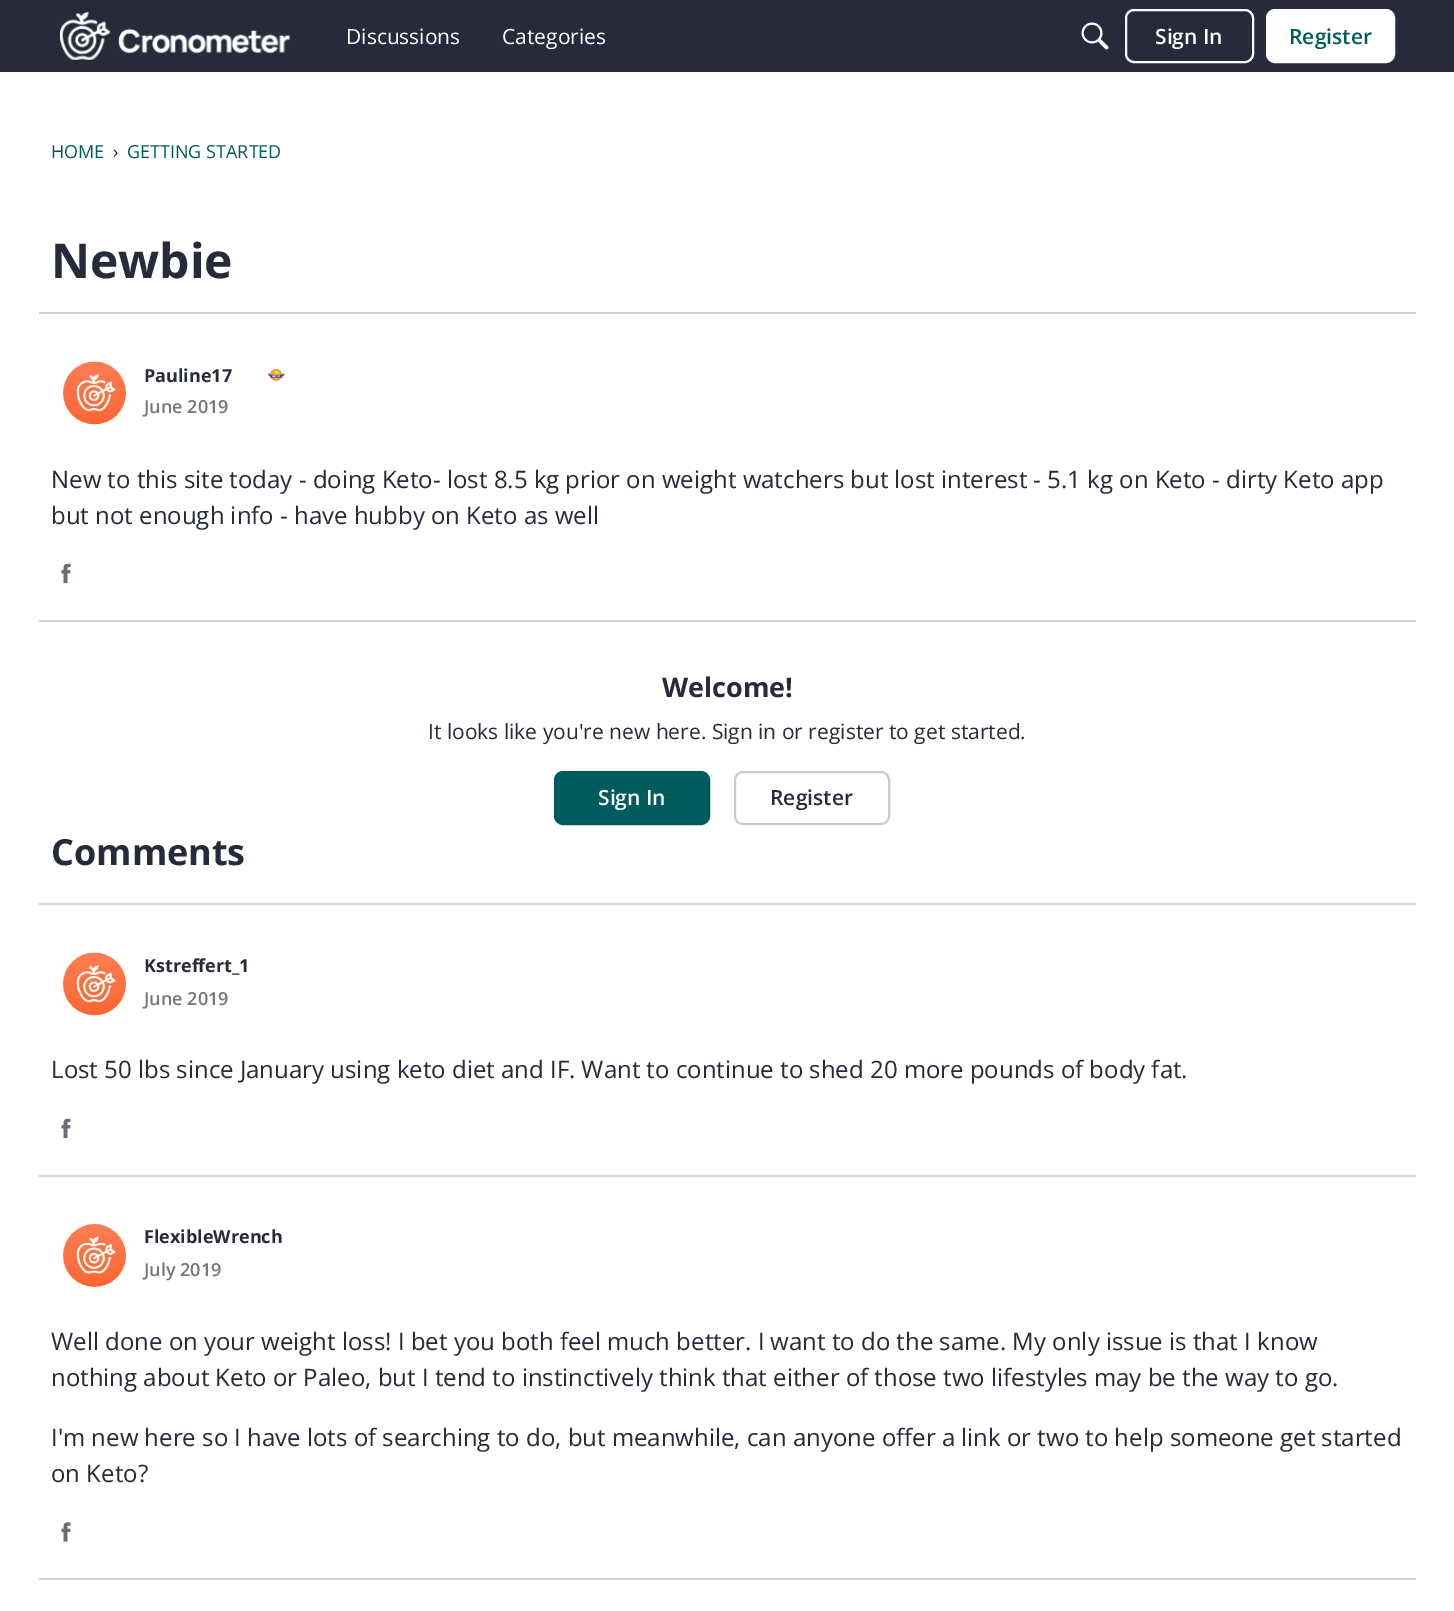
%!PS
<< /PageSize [1454 1611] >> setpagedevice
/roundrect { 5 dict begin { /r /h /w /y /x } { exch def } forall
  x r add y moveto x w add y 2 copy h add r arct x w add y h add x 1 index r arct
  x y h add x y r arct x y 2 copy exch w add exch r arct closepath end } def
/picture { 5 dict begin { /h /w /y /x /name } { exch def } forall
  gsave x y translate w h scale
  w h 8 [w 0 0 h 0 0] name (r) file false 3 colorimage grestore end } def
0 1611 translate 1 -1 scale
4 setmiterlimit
1 setgray
0 0 1454 1611 rectfill
0.149 0.165 0.231 setrgbcolor
0 0 1454 72 rectfill
(img1.rgb) 60 12 230 48 picture
/OpenSans-Regular [21 0 0 -21 0 0] selectfont
1 setgray
346 44 moveto (Discussions) show
502 44 moveto (Categories) show
(img2.rgb) 1081 22 28 28 picture
2 setlinewidth
1126 10 127 52 8 roundrect stroke
/OpenSans-SemiBold [21 0 0 -21 0 0] selectfont
1155 44 moveto (Sign In) show
1267 10 127 52 8 roundrect gsave fill grestore
stroke
0 0.361 0.361 setrgbcolor
1289 44 moveto (Register) show
/OpenSans-Regular [18 0 0 -18 0 0] selectfont
51 158 moveto (HOME) show
0.149 0.165 0.231 setrgbcolor
113 158 moveto (›) show
0 0.361 0.361 setrgbcolor
127 158 moveto (GETTING STARTED) show
/OpenSans-Bold [48 0 0 -48 0 0] selectfont
0.149 0.165 0.231 setrgbcolor
51 278 moveto (Newbie) show
0.831 0.831 0.847 setrgbcolor
39 312 1377 2 rectfill
(img3.rgb) 63 361 63 64 picture
/OpenSans-Bold [18 0 0 -18 0 0] selectfont
0.149 0.165 0.231 setrgbcolor
144 382 moveto (Pauline17) show
(img4.rgb) 267 368 18 13 picture
/OpenSans-SemiBold [18 0 0 -18 0 0] selectfont
0.463 setgray
144 413 moveto (June 2019) show
/OpenSans-Regular [24 0 0 -24 0 0] selectfont
0.149 0.165 0.231 setrgbcolor
51 488 moveto (New to this site today - doing Keto- lost 8.5 kg prior on weight watchers but lost interest - 5.1 kg on Keto - dirty Keto app) show
51 524 moveto (but not enough info - have hubby on Keto as well) show
(img5.rgb) 61 563 10 21 picture
0.831 0.831 0.847 setrgbcolor
39 620 1377 2 rectfill
/OpenSans-Bold [27 0 0 -27 0 0] selectfont
0.149 0.165 0.231 setrgbcolor
662 697 moveto (Welcome!) show
/OpenSans-Regular [21 0 0 -21 0 0] selectfont
428 739 moveto (It looks like you're new here. Sign in or register to get started.) show
0 0.361 0.361 setrgbcolor
555 772 154 52 8 roundrect gsave fill grestore
stroke
/OpenSans-SemiBold [21 0 0 -21 0 0] selectfont
1 setgray
598 805 moveto (Sign In) show
0.796 0.8 0.816 setrgbcolor
735 772 154 52 8 roundrect stroke
0.149 0.165 0.231 setrgbcolor
770 805 moveto (Register) show
/OpenSans-Bold [36 0 0 -36 0 0] selectfont
51 865 moveto (Comments) show
0.831 0.831 0.847 setrgbcolor
39 903 1377 2 rectfill
(img3.rgb) 63 952 63 64 picture
/OpenSans-Bold [18 0 0 -18 0 0] selectfont
0.149 0.165 0.231 setrgbcolor
144 972 moveto (Kstreffert_1) show
/OpenSans-SemiBold [18 0 0 -18 0 0] selectfont
0.463 setgray
144 1005 moveto (June 2019) show
/OpenSans-Regular [24 0 0 -24 0 0] selectfont
0.149 0.165 0.231 setrgbcolor
51 1078 moveto (Lost 50 lbs since January using keto diet and IF. Want to continue to shed 20 more pounds of body fat.) show
(img5.rgb) 61 1118 10 21 picture
0.831 0.831 0.847 setrgbcolor
39 1175 1377 2 rectfill
(img6.rgb) 63 1224 63 63 picture
/OpenSans-Bold [18 0 0 -18 0 0] selectfont
0.149 0.165 0.231 setrgbcolor
144 1243 moveto (FlexibleWrench) show
/OpenSans-SemiBold [18 0 0 -18 0 0] selectfont
0.463 setgray
144 1276 moveto (July 2019) show
/OpenSans-Regular [24 0 0 -24 0 0] selectfont
0.149 0.165 0.231 setrgbcolor
51 1350 moveto (Well done on your weight loss! I bet you both feel much better. I want to do the same. My only issue is that I know) show
51 1386 moveto (nothing about Keto or Paleo, but I tend to instinctively think that either of those two lifestyles may be the way to go.) show
51 1446 moveto (I'm new here so I have lots of searching to do, but meanwhile, can anyone offer a link or two to help someone get started) show
51 1482 moveto (on Keto?) show
(img7.rgb) 61 1522 10 20 picture
0.831 0.831 0.847 setrgbcolor
39 1578 1377 2 rectfill
showpage
